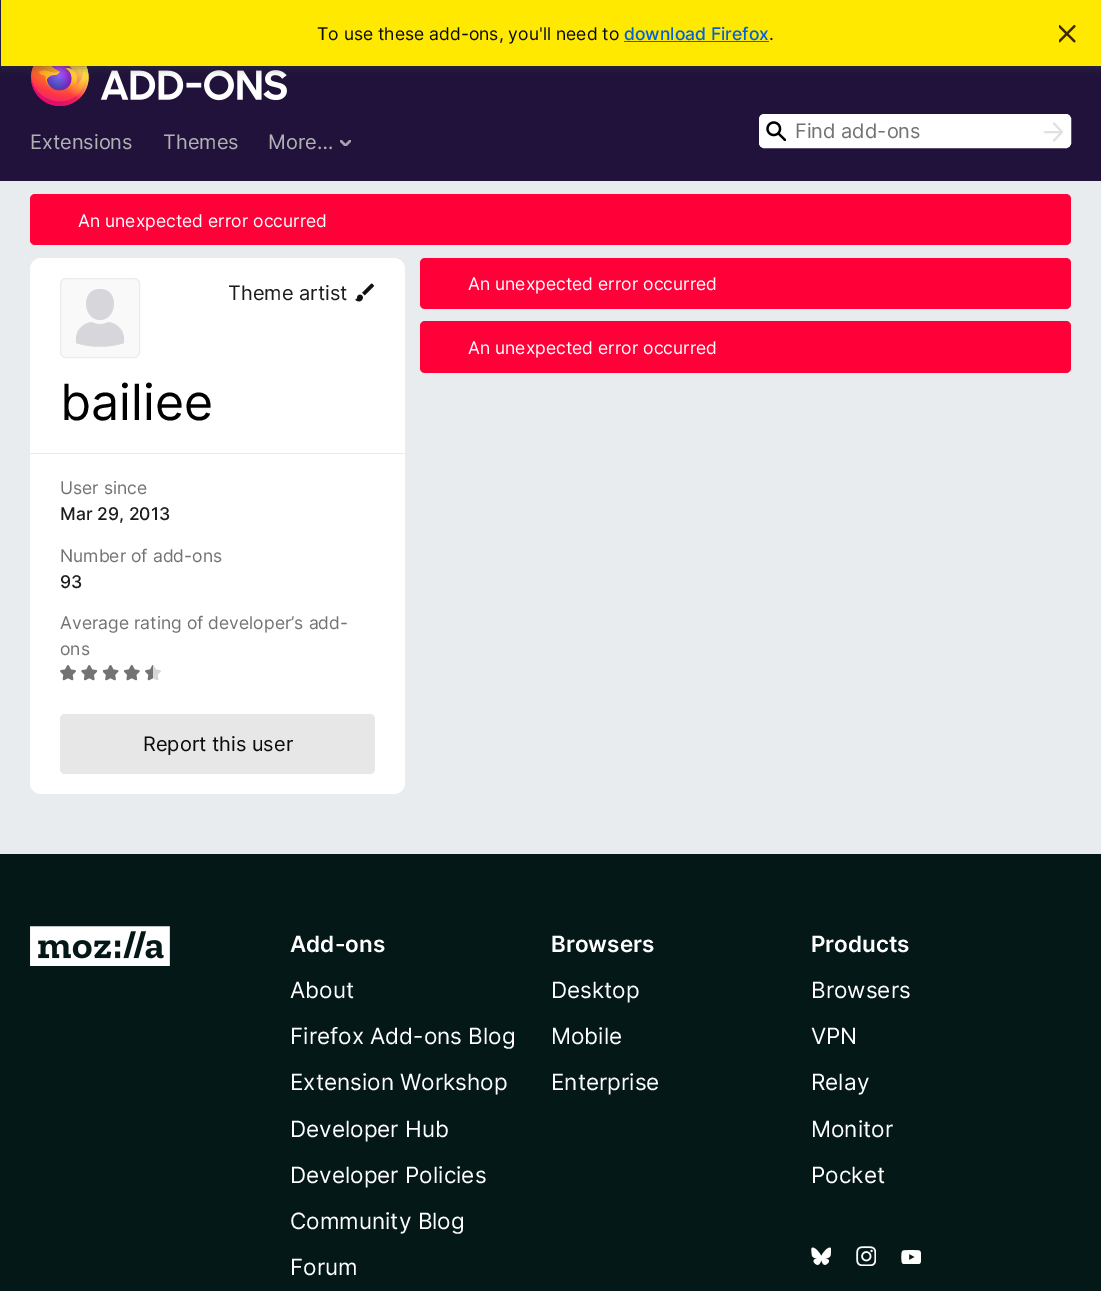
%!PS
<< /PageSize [1101 1291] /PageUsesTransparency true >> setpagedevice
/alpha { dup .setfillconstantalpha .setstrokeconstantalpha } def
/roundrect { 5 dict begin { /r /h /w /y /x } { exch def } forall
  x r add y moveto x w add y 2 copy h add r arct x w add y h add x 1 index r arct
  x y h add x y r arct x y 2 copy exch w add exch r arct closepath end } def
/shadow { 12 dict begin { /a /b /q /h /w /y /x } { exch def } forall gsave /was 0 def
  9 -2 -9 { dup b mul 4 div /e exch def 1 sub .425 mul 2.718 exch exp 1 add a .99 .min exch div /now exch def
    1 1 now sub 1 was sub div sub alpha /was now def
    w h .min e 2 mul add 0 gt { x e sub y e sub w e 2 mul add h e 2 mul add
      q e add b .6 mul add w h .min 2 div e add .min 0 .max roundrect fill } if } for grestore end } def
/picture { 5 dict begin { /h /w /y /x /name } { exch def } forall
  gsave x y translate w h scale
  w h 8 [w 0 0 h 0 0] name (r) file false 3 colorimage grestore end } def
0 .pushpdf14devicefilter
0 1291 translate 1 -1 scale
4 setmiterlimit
0.125 0.071 0.227 setrgbcolor
0 0 1101 1291 rectfill
(img2.rgb) 30 66 257 40 picture
0.204 0.227 0.251 setrgbcolor
1 1 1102 67 0 4.5 0.5 shadow
1 0.914 0 setrgbcolor
1 0 1100 66 rectfill
/Inter-Regular [17.5 0 0 -17.5 0 0] selectfont
0.047 0.047 0.051 setrgbcolor
317 40 moveto (To use these add-ons, you'll need to) show
/Inter-Medium [17.5 0 0 -17.5 0 0] selectfont
0 0.376 0.875 setrgbcolor
624 40 moveto (download Firefox) show
/Inter-Regular [17.5 0 0 -17.5 0 0] selectfont
0.047 0.047 0.051 setrgbcolor
769 40 moveto (.) show
0 0.376 0.875 setrgbcolor
624 41 145 1 rectfill
(img1.rgb) 1059 25 17 18 picture
1 setgray
759.5 114.5 311 33 4.5 roundrect gsave fill grestore
stroke
(img3.rgb) 766 121 20 20 picture
/Inter-Regular [20 0 0 -20 0 0] selectfont
0.451 setgray
795 138 moveto (Find add-ons) show
0.882 0.882 0.898 setrgbcolor
2.1 setlinewidth
1 setlinecap
1 setlinejoin
newpath 1045 132 moveto 1061.5 132 lineto 1054 123.5 moveto 1062 132 lineto 1054 140.5 lineto stroke
0.694 0.694 0.702 setrgbcolor
30 149 moveto (Extensions) show
163 149 moveto (Themes) show
268 149 moveto (More…) show
gsave
340 140 11 6 rectclip
0.651 0.627 0.69 setrgbcolor
2.2 setlinewidth
newpath 350 141 moveto 345.5 145.5 lineto 341 141 lineto stroke
grestore
0.914 0.925 0.937 setrgbcolor
0 181 1101 673 rectfill
1 0 0.224 setrgbcolor
30 194 1041 51 5 roundrect fill
/Inter-Regular [17.5 0 0 -17.5 0 0] selectfont
1 setgray
78 227 moveto (An unexpected error occurred) show
newpath 41 258 moveto 394 258 lineto 400 258 405 263 405 269 curveto 405 453 lineto 30 453 lineto 30 269 lineto 30 263 35 258 41 258 curveto closepath fill
0.976 0.976 0.98 setrgbcolor
60.5 278.5 79 79 5.5 roundrect gsave fill grestore
0.922 setgray
1 setlinewidth
0 setlinecap
0 setlinejoin
stroke
0.843 0.843 0.859 setrgbcolor
newpath 108 322 moveto 103 325 97 325 92 322 curveto 83 323 76 330 76 339 curveto 76 343 lineto 90 348 110 348 124 343 curveto 124 339 lineto 124 330 117 323 108 322 curveto closepath 100 320 moveto 117 320 120 289 100 289 curveto 80 289 83 320 100 320 curveto closepath fill
/Inter-Regular [20 0 0 -20 0 0] selectfont
0.114 setgray
228 300 moveto (Theme artist) show
(img4.rgb) 355 283 19 19 picture
/Inter-Regular [50 0 0 -50 0 0] selectfont
0 setgray
60 420 moveto (bailiee) show
1 setgray
newpath 30 454 moveto 405 454 lineto 405 783 lineto 405 789 400 794 394 794 curveto 41 794 lineto 35 794 30 789 30 783 curveto closepath fill
/Inter-Regular [17.5 0 0 -17.5 0 0] selectfont
0.451 setgray
60 494 moveto (User since) show
/Inter-Medium [17.5 0 0 -17.5 0 0] selectfont
0.114 setgray
60 520 moveto (Mar 29, 2013) show
/Inter-Regular [17.5 0 0 -17.5 0 0] selectfont
0.451 setgray
60 562 moveto (Number of add-ons) show
/Inter-Medium [17.5 0 0 -17.5 0 0] selectfont
0.114 setgray
60 588 moveto (93) show
/Inter-Regular [17.5 0 0 -17.5 0 0] selectfont
0.451 setgray
60 629 moveto (Average rating of developer’s add-) show
60 655 moveto (ons) show
(img5.rgb) 60 665 16 16 picture
(img6.rgb) 81 665 17 16 picture
(img7.rgb) 103 665 16 16 picture
(img8.rgb) 124 665 16 16 picture
(img9.rgb) 145 665 16 16 picture
0.906 setgray
60 714 315 60 5 roundrect fill
/Inter-Regular [20 0 0 -20 0 0] selectfont
0.047 0.047 0.051 setrgbcolor
143 751 moveto (Report this user) show
1 0 0.224 setrgbcolor
420 258 651 51 5 roundrect fill
/Inter-Regular [17.5 0 0 -17.5 0 0] selectfont
1 setgray
468 290 moveto (An unexpected error occurred) show
1 0 0.224 setrgbcolor
420 321 651 52 5 roundrect fill
1 setgray
468 354 moveto (An unexpected error occurred) show
0.02 0.094 0.094 setrgbcolor
0 854 1101 437 rectfill
(img10.rgb) 30 926 140 40 picture
/Inter-SemiBold [22.5 0 0 -22.5 0 0] selectfont
1 setgray
290 952 moveto (Add-ons) show
/Inter-Regular [22.5 0 0 -22.5 0 0] selectfont
290 998 moveto (About) show
290 1044 moveto (Firefox Add-ons Blog) show
290 1090 moveto (Extension Workshop) show
290 1137 moveto (Developer Hub) show
290 1183 moveto (Developer Policies) show
290 1229 moveto (Community Blog) show
290 1275 moveto (Forum) show
/Inter-SemiBold [22.5 0 0 -22.5 0 0] selectfont
551 952 moveto (Browsers) show
/Inter-Regular [22.5 0 0 -22.5 0 0] selectfont
551 998 moveto (Desktop) show
551 1044 moveto (Mobile) show
551 1090 moveto (Enterprise) show
/Inter-SemiBold [22.5 0 0 -22.5 0 0] selectfont
811 952 moveto (Products) show
/Inter-Regular [22.5 0 0 -22.5 0 0] selectfont
811 998 moveto (Browsers) show
811 1044 moveto (VPN) show
811 1090 moveto (Relay) show
811 1137 moveto (Monitor) show
811 1183 moveto (Pocket) show
(img11.rgb) 811 1247 20 18 picture
(img12.rgb) 856 1246 20 20 picture
(img13.rgb) 901 1250 20 14 picture
.poppdf14devicefilter showpage
